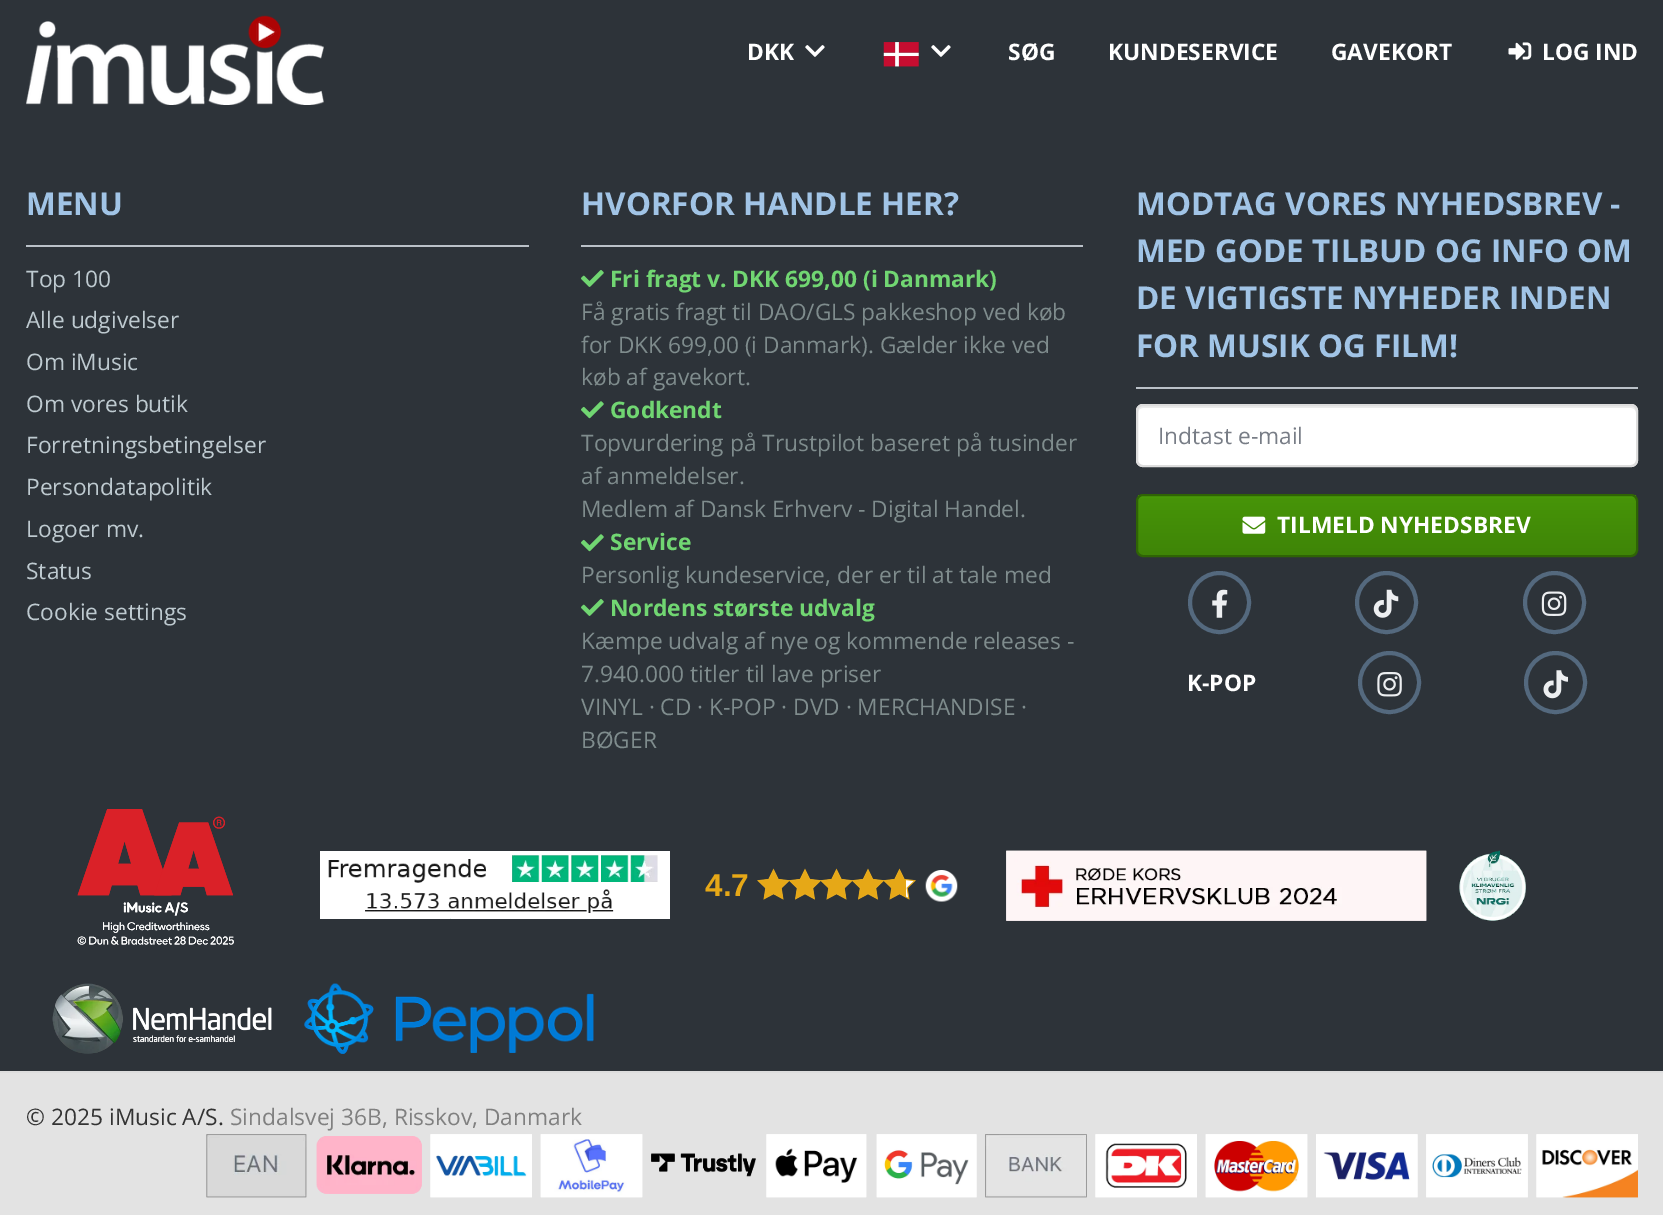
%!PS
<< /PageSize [1663 1215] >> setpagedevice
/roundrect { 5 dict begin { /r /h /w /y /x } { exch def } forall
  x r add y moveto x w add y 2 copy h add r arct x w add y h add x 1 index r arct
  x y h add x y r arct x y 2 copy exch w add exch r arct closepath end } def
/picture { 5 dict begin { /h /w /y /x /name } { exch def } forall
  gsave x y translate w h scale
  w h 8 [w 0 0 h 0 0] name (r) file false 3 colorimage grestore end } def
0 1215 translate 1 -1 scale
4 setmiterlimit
0.176 0.2 0.224 setrgbcolor
0 0 1663 1215 rectfill
(img1.rgb) 26 15 298 90 picture
/OpenSans-Bold [22.75 0 0 -22.75 0 0] selectfont
1 setgray
747 60 moveto (DKK) show
(img2.rgb) 805 45 20 12 picture
(img3.rgb) 883 42 36 25 picture
(img2.rgb) 931 45 20 12 picture
1008 60 moveto (SØG) show
1108 60 moveto (KUNDESERVICE) show
1331 60 moveto (GAVEKORT) show
(img4.rgb) 1508 42 24 18 picture
1542 60 moveto (LOG IND) show
0.729 0.757 0.784 setrgbcolor
26 245 503 2 rectfill
/OpenSans-Bold [31.5 0 0 -31.5 0 0] selectfont
0.631 0.769 0.902 setrgbcolor
26 215 moveto (MENU) show
/OpenSans-Regular [22.75 0 0 -22.75 0 0] selectfont
0.745 0.792 0.816 setrgbcolor
26 287 moveto (Top 100) show
26 328 moveto (Alle udgivelser) show
26 370 moveto (Om iMusic) show
26 412 moveto (Om vores butik) show
26 453 moveto (Forretningsbetingelser) show
26 495 moveto (Persondatapolitik) show
26 537 moveto (Logoer mv.) show
26 579 moveto (Status) show
26 620 moveto (Cookie settings) show
0.729 0.757 0.784 setrgbcolor
581 245 502 2 rectfill
/OpenSans-Bold [31.5 0 0 -31.5 0 0] selectfont
0.631 0.769 0.902 setrgbcolor
581 215 moveto (HVORFOR HANDLE HER?) show
(img5.rgb) 581 270 23 17 picture
/OpenSans-Bold [22.75 0 0 -22.75 0 0] selectfont
0.443 0.839 0.447 setrgbcolor
610 287 moveto (Fri fragt v. DKK 699,00 \(i Danmark\)) show
/OpenSans-Regular [22.75 0 0 -22.75 0 0] selectfont
0.498 0.549 0.553 setrgbcolor
581 320 moveto (Få gratis fragt til DAO/GLS pakkeshop ved køb) show
581 353 moveto (for DKK 699,00 \(i Danmark\). Gælder ikke ved) show
581 385 moveto (køb af gavekort.) show
(img6.rgb) 581 401 23 18 picture
/OpenSans-Bold [22.75 0 0 -22.75 0 0] selectfont
0.443 0.839 0.447 setrgbcolor
610 418 moveto (Godkendt) show
/OpenSans-Regular [22.75 0 0 -22.75 0 0] selectfont
0.498 0.549 0.553 setrgbcolor
581 451 moveto (Topvurdering på Trustpilot baseret på tusinder) show
581 484 moveto (af anmeldelser.) show
581 517 moveto (Medlem af Dansk Erhverv - Digital Handel.) show
(img6.rgb) 581 534 23 18 picture
/OpenSans-Bold [22.75 0 0 -22.75 0 0] selectfont
0.443 0.839 0.447 setrgbcolor
610 550 moveto (Service) show
/OpenSans-Regular [22.75 0 0 -22.75 0 0] selectfont
0.498 0.549 0.553 setrgbcolor
581 583 moveto (Personlig kundeservice, der er til at tale med) show
(img5.rgb) 581 599 23 17 picture
/OpenSans-Bold [22.75 0 0 -22.75 0 0] selectfont
0.443 0.839 0.447 setrgbcolor
610 616 moveto (Nordens største udvalg) show
/OpenSans-Regular [22.75 0 0 -22.75 0 0] selectfont
0.498 0.549 0.553 setrgbcolor
581 649 moveto (Kæmpe udvalg af nye og kommende releases -) show
581 682 moveto (7.940.000 titler til lave priser) show
581 715 moveto (VINYL · CD · K-POP · DVD · MERCHANDISE ·) show
581 748 moveto (BØGER) show
0.729 0.757 0.784 setrgbcolor
1136 387 502 2 rectfill
/OpenSans-Bold [31.5 0 0 -31.5 0 0] selectfont
0.631 0.769 0.902 setrgbcolor
1136 215 moveto (MODTAG VORES NYHEDSBREV -) show
1136 262 moveto (MED GODE TILBUD OG INFO OM) show
1136 309 moveto (DE VIGTIGSTE NYHEDER INDEN) show
1136 357 moveto (FOR MUSIK OG FILM!) show
1 setgray
1136 404 502 63 7 roundrect fill
0.925 setgray
newpath 1143 408 moveto 1631 408 lineto 1634 408 1636 410 1636 413 curveto 1636 411 lineto 1636 408 1634 406 1631 406 curveto 1143 406 lineto 1140 406 1138 408 1138 411 curveto 1138 413 lineto 1138 410 1140 408 1143 408 curveto closepath fill
0.867 setgray
2 setlinewidth
1137 405 500 61 6 roundrect stroke
/OpenSans-Regular [22.75 0 0 -22.75 0 0] selectfont
0.471 0.49 0.525 setrgbcolor
1158 444 moveto (Indtast e-mail) show
gsave newpath 1138 495 moveto 1636 495 lineto 1636 555 lineto 1138 555 lineto closepath clip newpath
<< /ShadingType 2 /ColorSpace /DeviceRGB /Coords [1387 495 1387 555] /Extend [true true] /Function << /FunctionType 3 /Domain [0 1] /Functions [<< /FunctionType 2 /Domain [0 1] /C0 [0.302 0.639 0.035] /C1 [0.275 0.58 0.031] /N 1 >> << /FunctionType 2 /Domain [0 1] /C0 [0.275 0.58 0.031] /C1 [0.247 0.522 0.027] /N 1 >>] /Bounds [0.06] /Encode [0 1 0 1] >> >> shfill grestore
0.184 0.392 0.02 setrgbcolor
1137 495 500 61 6 roundrect stroke
(img7.rgb) 1242 516 24 18 picture
/OpenSans-Bold [22.75 0 0 -22.75 0 0] selectfont
1 setgray
1277 533 moveto (TILMELD NYHEDSBREV) show
0.329 0.412 0.494 setrgbcolor
4 setlinewidth
newpath 1219.5 602.5 29.5 0 360 arc closepath stroke
(img8.rgb) 1212 589 16 29 picture
newpath 1386.5 602.5 29.5 0 360 arc closepath stroke
(img9.rgb) 1373 589 26 29 picture
newpath 1554.5 602.5 29.5 0 360 arc closepath stroke
(img10.rgb) 1541 591 26 25 picture
1 setgray
1187 691 moveto (K-POP) show
0.329 0.412 0.494 setrgbcolor
newpath 1389.5 682.5 29.5 0 360 arc closepath stroke
(img11.rgb) 1377 672 25 25 picture
newpath 1555.5 682.5 29.5 0 360 arc closepath stroke
(img12.rgb) 1543 670 25 29 picture
(img13.rgb) 77 809 157 136 picture
(img14.rgb) 77 809 157 136 picture
(img15.rgb) 1006 850 421 71 picture
(img16.rgb) 1006 850 421 71 picture
(img17.rgb) 1459 850 67 71 picture
1 setgray
320 851 350 68 rectfill
(img18.rgb) 1459 850 67 71 picture
(img19.rgb) 328 855 330 64 picture
(img20.rgb) 757 868 159 32 picture
/LiberationSans-Bold [31.5 0 0 -31.5 0 0] selectfont
0.902 0.659 0.09 setrgbcolor
705 896 moveto (4.7) show
(img21.rgb) 925 870 33 32 picture
(img22.rgb) 52 983 220 71 picture
(img23.rgb) 52 983 220 71 picture
(img24.rgb) 304 983 290 71 picture
(img25.rgb) 304 983 290 71 picture
0.89 setgray
0 1073 1663 142 rectfill
0.867 setgray
0 1071 1663 2 rectfill
/OpenSans-Regular [22.75 0 0 -22.75 0 0] selectfont
0.2 setgray
26 1125 moveto (© 2025 iMusic A/S.) show
0.502 setgray
230 1125 moveto (Sindalsvej 36B, Risskov, Danmark) show
(img26.rgb) 206 1134 101 64 picture
(img27.rgb) 206 1134 101 64 picture
(img28.rgb) 316 1136 106 58 picture
(img29.rgb) 316 1136 106 58 picture
(img30.rgb) 430 1134 102 64 picture
(img31.rgb) 430 1134 102 64 picture
(img32.rgb) 540 1134 103 64 picture
(img33.rgb) 540 1134 103 64 picture
(img34.rgb) 651 1153 105 24 picture
(img35.rgb) 651 1153 105 24 picture
(img36.rgb) 766 1134 101 64 picture
(img37.rgb) 766 1134 101 64 picture
(img38.rgb) 876 1134 101 64 picture
(img39.rgb) 876 1134 101 64 picture
(img40.rgb) 985 1134 102 64 picture
(img41.rgb) 985 1134 102 64 picture
(img42.rgb) 1095 1134 102 64 picture
(img43.rgb) 1095 1134 102 64 picture
(img44.rgb) 1205 1134 103 64 picture
(img45.rgb) 1205 1134 103 64 picture
(img46.rgb) 1316 1134 102 64 picture
(img47.rgb) 1316 1134 102 64 picture
(img48.rgb) 1426 1134 102 64 picture
(img49.rgb) 1426 1134 102 64 picture
(img50.rgb) 1536 1134 102 64 picture
(img51.rgb) 1536 1134 102 64 picture
showpage
